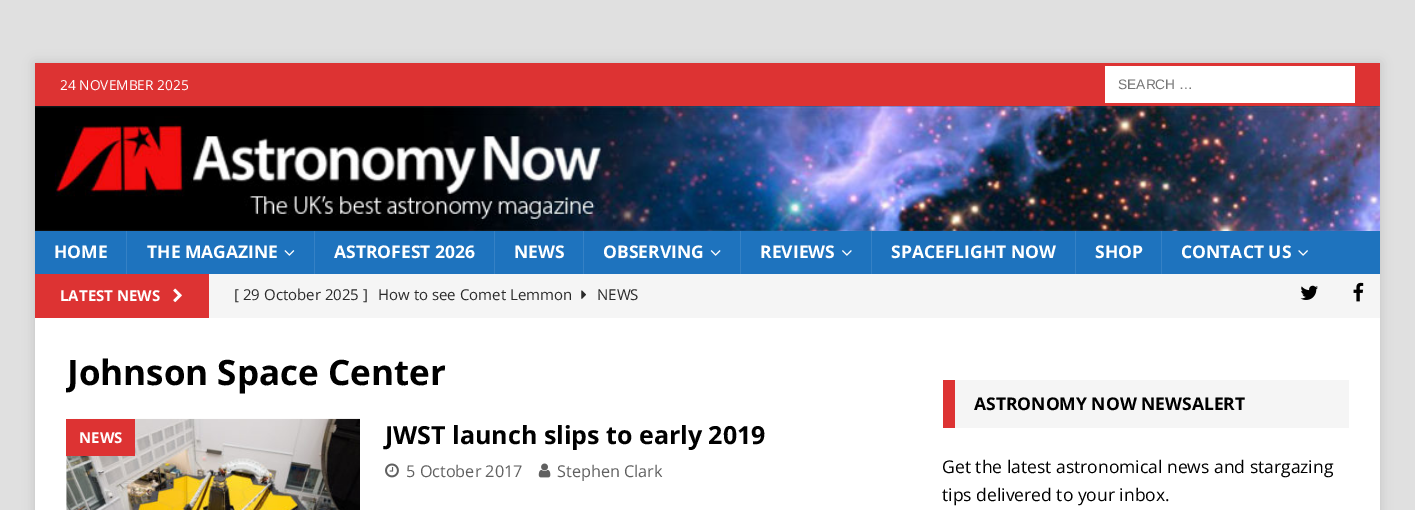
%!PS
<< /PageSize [1415 510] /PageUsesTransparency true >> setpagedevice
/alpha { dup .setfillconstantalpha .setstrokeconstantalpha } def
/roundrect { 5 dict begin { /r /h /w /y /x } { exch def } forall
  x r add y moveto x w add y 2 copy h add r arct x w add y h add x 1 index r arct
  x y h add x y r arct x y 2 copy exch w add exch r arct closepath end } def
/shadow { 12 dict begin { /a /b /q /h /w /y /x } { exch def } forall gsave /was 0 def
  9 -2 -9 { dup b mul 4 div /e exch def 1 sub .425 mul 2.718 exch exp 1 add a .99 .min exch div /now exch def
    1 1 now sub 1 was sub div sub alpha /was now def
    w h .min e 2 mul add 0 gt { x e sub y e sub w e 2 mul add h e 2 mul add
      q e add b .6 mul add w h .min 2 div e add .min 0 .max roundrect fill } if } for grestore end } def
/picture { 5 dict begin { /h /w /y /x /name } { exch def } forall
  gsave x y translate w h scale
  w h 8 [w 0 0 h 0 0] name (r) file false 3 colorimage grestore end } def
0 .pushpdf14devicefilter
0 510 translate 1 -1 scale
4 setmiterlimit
0.878 setgray
0 0 1415 510 rectfill
0.196 setgray
35 63 1345 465 0 6 0.17 shadow
0.867 0.2 0.2 setrgbcolor
35 63 1345 43 rectfill
/OpenSans-Regular [13.75 0 0 -13.75 0 0] selectfont
1 setgray
60 90 moveto (24 NOVEMBER 2025) show
1105 66 250 37 rectfill
/LiberationSans-Regular [13.75 0 0 -13.75 0 0] selectfont
0.459 setgray
1118 89 moveto (SEARCH …) show
(img1.rgb) 35 106 1345 125 picture
0.118 0.451 0.745 setrgbcolor
35 231 1345 43 rectfill
/OpenSans-Bold [17.5 0 0 -17.5 0 0] selectfont
1 setgray
54 258 moveto (HOME) show
0.208 0.506 0.773 setrgbcolor
126 231 1 43 rectfill
1 setgray
147 258 moveto (THE MAGAZINE) show
(img2.rgb) 284 250 11 6 picture
0.208 0.506 0.773 setrgbcolor
314 231 1 43 rectfill
1 setgray
334 258 moveto (ASTROFEST 2026) show
0.208 0.506 0.773 setrgbcolor
494 231 1 43 rectfill
1 setgray
514 258 moveto (NEWS) show
0.208 0.506 0.773 setrgbcolor
583 231 1 43 rectfill
1 setgray
603 258 moveto (OBSERVING) show
(img3.rgb) 710 250 11 6 picture
0.208 0.506 0.773 setrgbcolor
740 231 1 43 rectfill
1 setgray
760 258 moveto (REVIEWS) show
(img4.rgb) 842 250 10 6 picture
0.208 0.506 0.773 setrgbcolor
871 231 1 43 rectfill
1 setgray
891 258 moveto (SPACEFLIGHT NOW) show
0.208 0.506 0.773 setrgbcolor
1075 231 1 43 rectfill
1 setgray
1095 258 moveto (SHOP) show
0.208 0.506 0.773 setrgbcolor
1161 231 1 43 rectfill
1 setgray
1181 258 moveto (CONTACT US) show
(img5.rgb) 1298 250 10 6 picture
0.961 setgray
209 274 1171 44 rectfill
0.867 0.2 0.2 setrgbcolor
35 274 174 44 rectfill
/OpenSans-Bold [15 0 0 -15 0 0] selectfont
1 setgray
60 301 moveto (LATEST NEWS) show
(img6.rgb) 173 288 9 15 picture
/OpenSans-Regular [15 0 0 -15 0 0] selectfont
0.165 setgray
234 300 moveto ([ 29 October 2025 ]) show
378 300 moveto (How to see Comet Lemmon) show
(img7.rgb) 581 290 5 9 picture
597 300 moveto (NEWS) show
(img8.rgb) 1300 285 18 15 picture
(img9.rgb) 1353 282 11 20 picture
1 setgray
35 318 1345 192 rectfill
gsave
66 349 844 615 rectclip
/OpenSans-Bold [35 0 0 -35 0 0] selectfont
0 setgray
67 385 moveto (Johnson Space Center) show
grestore
(img10.rgb) 66 418 294 92 picture
0.867 0.2 0.2 setrgbcolor
66 419 69 37 rectfill
/OpenSans-Bold [15 0 0 -15 0 0] selectfont
1 setgray
79 443 moveto (NEWS) show
/OpenSans-Bold [25 0 0 -25 0 0] selectfont
0 setgray
385 444 moveto (JWST launch slips to early 2019) show
(img11.rgb) 385 463 14 15 picture
/OpenSans-Regular [16.25 0 0 -16.25 0 0] selectfont
0.376 setgray
406 477 moveto (5 October 2017) show
(img12.rgb) 538 463 13 15 picture
557 477 moveto (Stephen Clark) show
0.961 setgray
955 380 394 48 rectfill
0.867 0.2 0.2 setrgbcolor
943 380 12 48 rectfill
/OpenSans-Bold [17.5 0 0 -17.5 0 0] selectfont
0 setgray
974 410 moveto (ASTRONOMY NOW NEWSALERT) show
/OpenSans-Regular [17.5 0 0 -17.5 0 0] selectfont
942 473 moveto (Get the latest astronomical news and stargazing) show
942 501 moveto (tips delivered to your inbox.) show
.poppdf14devicefilter showpage
